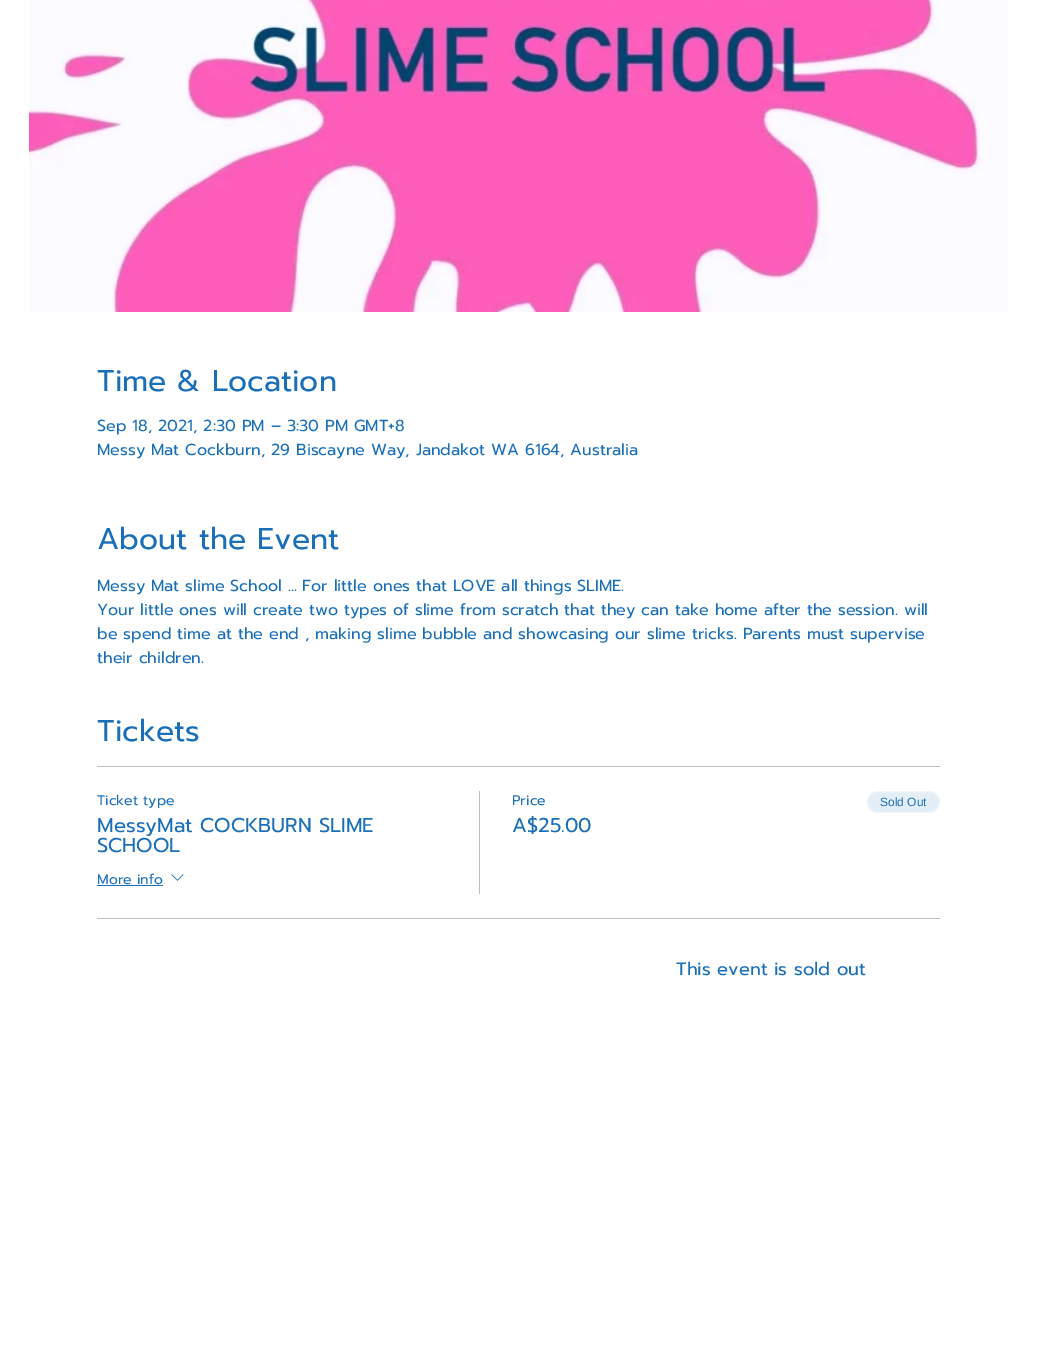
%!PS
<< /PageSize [1041 1369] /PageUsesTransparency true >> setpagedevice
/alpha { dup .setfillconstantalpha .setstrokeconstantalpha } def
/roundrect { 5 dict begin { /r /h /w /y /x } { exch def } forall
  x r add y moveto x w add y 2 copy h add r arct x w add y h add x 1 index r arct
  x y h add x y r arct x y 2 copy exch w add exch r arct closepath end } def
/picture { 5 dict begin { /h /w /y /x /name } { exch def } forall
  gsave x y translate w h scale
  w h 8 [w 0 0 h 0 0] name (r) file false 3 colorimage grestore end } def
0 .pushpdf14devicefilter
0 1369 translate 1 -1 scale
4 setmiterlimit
1 setgray
0 0 1041 1369 rectfill
(img1.rgb) 29 0 979 312 picture
/Prompt-Regular [30 0 0 -30 0 0] selectfont
0.106 0.435 0.722 setrgbcolor
97 391 moveto (Time & Location) show
/Prompt-Regular [16 0 0 -16 0 0] selectfont
97 431 moveto (Sep 18, 2021, 2:30 PM – 3:30 PM GMT+8) show
97 455 moveto (Messy Mat Cockburn, 29 Biscayne Way, Jandakot WA 6164, Australia) show
/Prompt-Regular [30 0 0 -30 0 0] selectfont
97 549 moveto (About the Event) show
/Prompt-Regular [16 0 0 -16 0 0] selectfont
97 591 moveto (Messy Mat slime School ... For little ones that LOVE all things SLIME.) show
97 615 moveto (Your little ones will create two types of slime from scratch that they can take home after the session. will) show
97 639 moveto (be spend time at the end , making slime bubble and showcasing our slime tricks. Parents must supervise) show
97 663 moveto (their children.) show
/Prompt-Regular [30 0 0 -30 0 0] selectfont
97 741 moveto (Tickets) show
0.753 0.745 0.757 setrgbcolor
97 766 843 1 rectfill
97 918 843 1 rectfill
/Prompt-Regular [14 0 0 -14 0 0] selectfont
0.106 0.435 0.722 setrgbcolor
97 805 moveto (Ticket type) show
/Prompt-Regular [20 0 0 -20 0 0] selectfont
97 832 moveto (MessyMat COCKBURN SLIME) show
97 852 moveto (SCHOOL) show
/Prompt-Regular [14 0 0 -14 0 0] selectfont
97 884 moveto (More info) show
97 885 66 1 rectfill
(img2.rgb) 171 874 13 7 picture
0.753 0.745 0.757 setrgbcolor
479 791 1 103 rectfill
0.106 0.435 0.722 setrgbcolor
512 805 moveto (Price) show
/Prompt-Regular [20 0 0 -20 0 0] selectfont
512 832 moveto (A$25.00) show
0.894 0.933 0.965 setrgbcolor
867 791 73 22 11 roundrect fill
0.4 alpha
1 setgray
867.5 791.5 72 21 10.5 roundrect stroke
/LiberationSans-Regular [12 0 0 -12 0 0] selectfont
1 alpha
0.106 0.435 0.722 setrgbcolor
880 806 moveto (Sold Out) show
/Prompt-Regular [18 0 0 -18 0 0] selectfont
676 975 moveto (This event is sold out) show
.poppdf14devicefilter showpage
